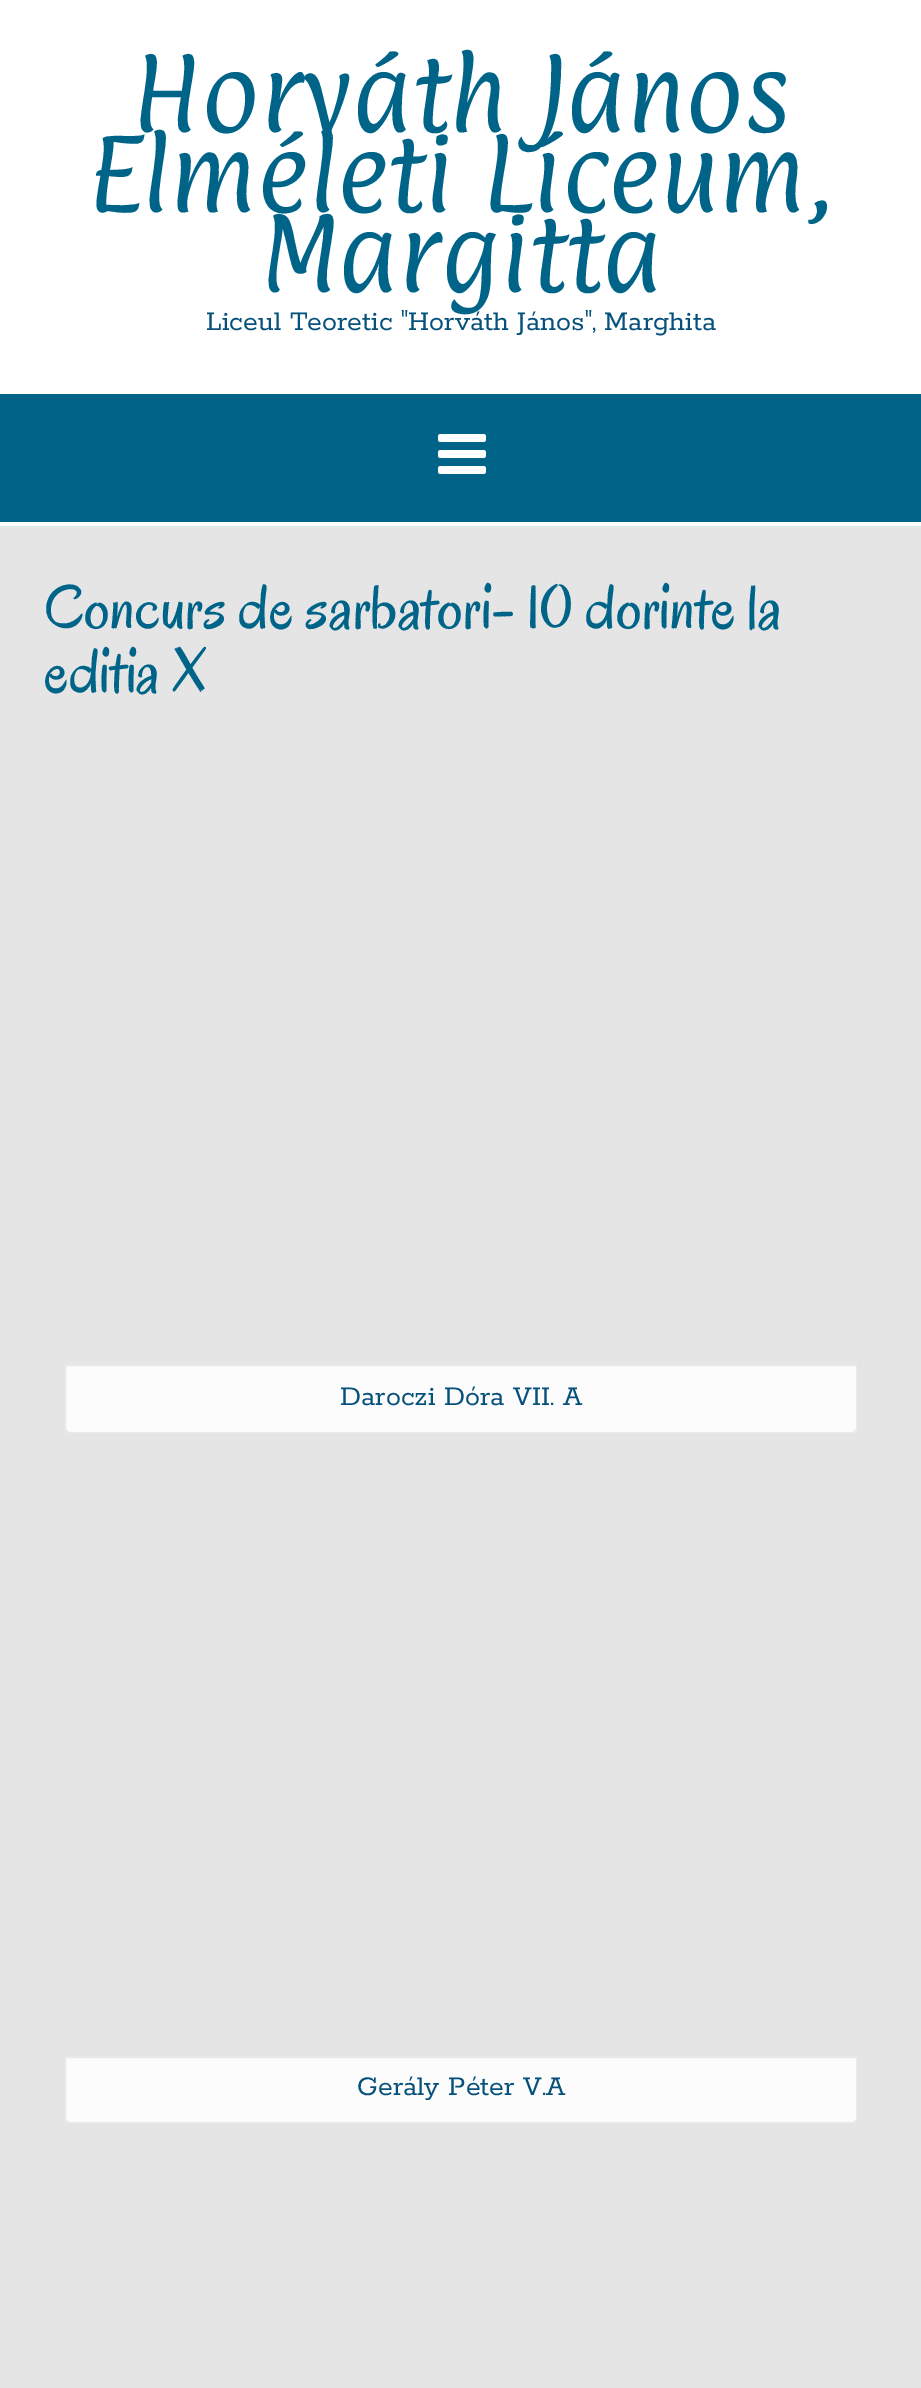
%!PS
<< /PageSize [921 2388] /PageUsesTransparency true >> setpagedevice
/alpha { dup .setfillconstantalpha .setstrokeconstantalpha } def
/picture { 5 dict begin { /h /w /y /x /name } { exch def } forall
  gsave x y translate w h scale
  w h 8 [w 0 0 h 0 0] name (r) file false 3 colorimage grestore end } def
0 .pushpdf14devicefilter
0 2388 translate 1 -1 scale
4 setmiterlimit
0.898 setgray
0 0 921 2388 rectfill
1 setgray
0 0 921 394 rectfill
/Paprika-Regular [88 0 0 -88 0 0] selectfont
0 0.392 0.537 setrgbcolor
132 132 moveto (Horváth János) show
88 212 moveto (Elméleti Líceum,) show
260 292 moveto (Margitta) show
/Rokkitt-Regular [30 0 0 -30 0 0] selectfont
0.024 0.318 0.486 setrgbcolor
206 330 moveto (Liceul Teoretic "Horváth János", Marghita) show
0 0.392 0.537 setrgbcolor
0 394 921 128 rectfill
1 setgray
0 522 921 4 rectfill
(img1.rgb) 438 434 48 40 picture
/Oregano-Regular [64 0 0 -64 0 0] selectfont
0 0.392 0.537 setrgbcolor
44 628 moveto (Concurs de sarbatori- 10 dorinte la) show
44 692 moveto (editia X) show
0.988 setgray
newpath 64 1364 moveto 858 1364 lineto 858 1428 lineto 858 1431.5 855.5 1434 852 1434 curveto 70 1434 lineto 66.5 1434 64 1431.5 64 1428 curveto closepath fill
0.08 alpha
0 setgray
2 setlinewidth
newpath 65 1365 moveto 857 1365 lineto 857 1428 lineto 857 1431 855 1433 852 1433 curveto 70 1433 lineto 67 1433 65 1431 65 1428 curveto closepath stroke
/Rokkitt-Regular [30 0 0 -30 0 0] selectfont
1 alpha
0.024 0.318 0.486 setrgbcolor
340 1405 moveto (Daroczi Dóra VII. A) show
0.988 setgray
newpath 64 2056 moveto 858 2056 lineto 858 2118 lineto 858 2121.5 855.5 2124 852 2124 curveto 70 2124 lineto 66.5 2124 64 2121.5 64 2118 curveto closepath fill
0.08 alpha
0 setgray
newpath 65 2057 moveto 857 2057 lineto 857 2118 lineto 857 2121 855 2123 852 2123 curveto 70 2123 lineto 67 2123 65 2121 65 2118 curveto closepath stroke
1 alpha
0.024 0.318 0.486 setrgbcolor
357 2095 moveto (Gerály Péter V.A) show
.poppdf14devicefilter showpage
